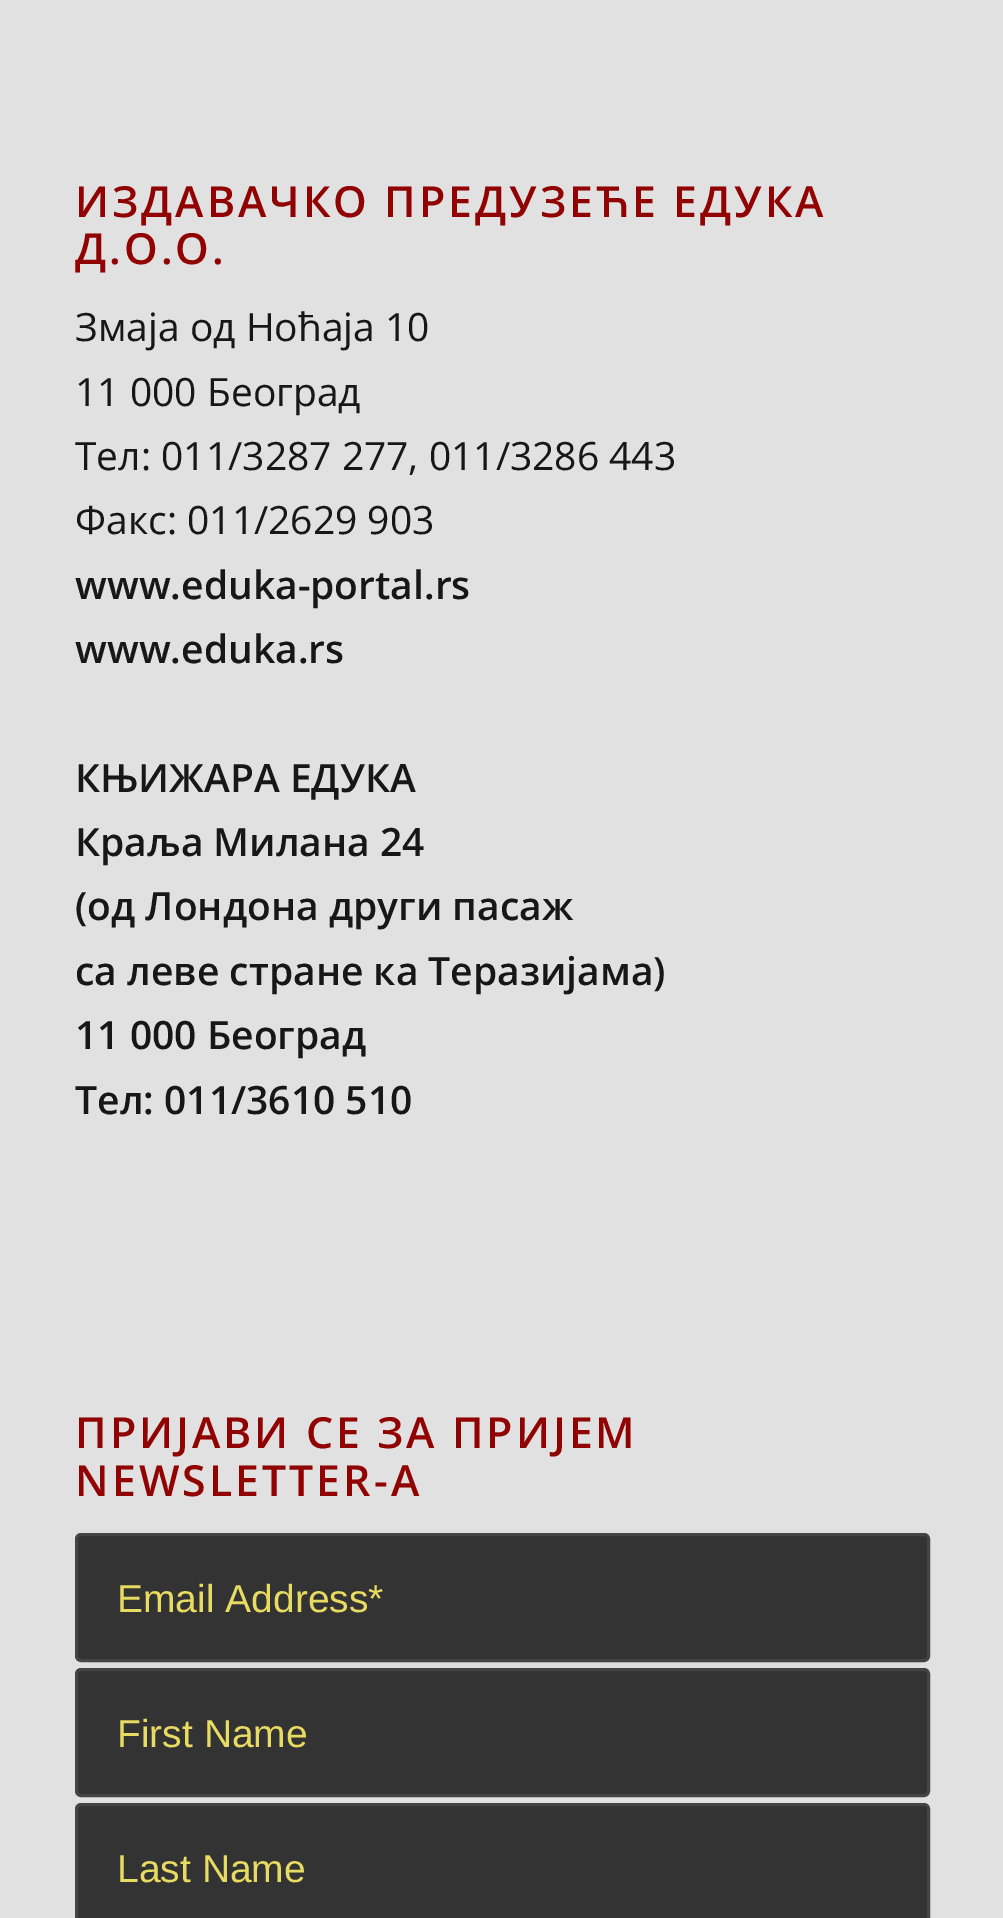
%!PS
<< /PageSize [1003 1918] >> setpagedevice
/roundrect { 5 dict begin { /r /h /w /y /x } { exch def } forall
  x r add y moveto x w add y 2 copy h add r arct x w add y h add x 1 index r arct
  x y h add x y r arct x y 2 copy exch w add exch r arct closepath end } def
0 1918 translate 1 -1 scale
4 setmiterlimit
0.882 setgray
0 0 1003 1918 rectfill
/OpenSans-SemiBold [42.9 0 0 -42.9 0 0] selectfont
0.569 0.012 0.012 setrgbcolor
75 217 moveto 3 0 (ИЗДАВАЧКО ПРЕДУЗЕЋЕ ЕДУКА) ashow
75 264 moveto 3 0 (Д.О.О.) ashow
/OpenSans-Regular [39 0 0 -39 0 0] selectfont
0.09 setgray
75 341 moveto (Змаја од Ноћаја 10) show
75 406 moveto (11 000 Београд) show
75 470 moveto (Тел: 011/3287 277, 011/3286 443) show
75 534 moveto (Факс: 011/2629 903) show
/OpenSans-SemiBold [39 0 0 -39 0 0] selectfont
75 599 moveto (www.eduka-portal.rs) show
75 663 moveto (www.eduka.rs) show
75 792 moveto (КЊИЖАРА ЕДУКА) show
75 856 moveto (Краља Милана 24) show
75 920 moveto (\(од Лондона други пасаж) show
75 985 moveto (са леве стране ка Теразијама\)) show
75 1049 moveto (11 000 Београд) show
75 1114 moveto (Тел: 011/3610 510) show
/OpenSans-SemiBold [42.9 0 0 -42.9 0 0] selectfont
0.569 0.012 0.012 setrgbcolor
75 1448 moveto 3 0 (ПРИЈАВИ СЕ ЗА ПРИЈЕМ) ashow
75 1496 moveto 3 0 (NEWSLETTER-A) ashow
0.2 setgray
76.5 1534.5 852 126 4.5 roundrect gsave fill grestore
0.267 setgray
3 setlinewidth
stroke
/LiberationSans-Regular [39 0 0 -39 0 0] selectfont
0.91 0.859 0.38 setrgbcolor
117 1612 moveto (Email Address*) show
0.2 setgray
76.5 1669.5 852 126 4.5 roundrect gsave fill grestore
0.267 setgray
stroke
0.91 0.859 0.38 setrgbcolor
117 1747 moveto (First Name) show
0.2 setgray
76.5 1804.5 852 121 4.5 roundrect gsave fill grestore
0.267 setgray
stroke
0.91 0.859 0.38 setrgbcolor
117 1882 moveto (Last Name) show
showpage
